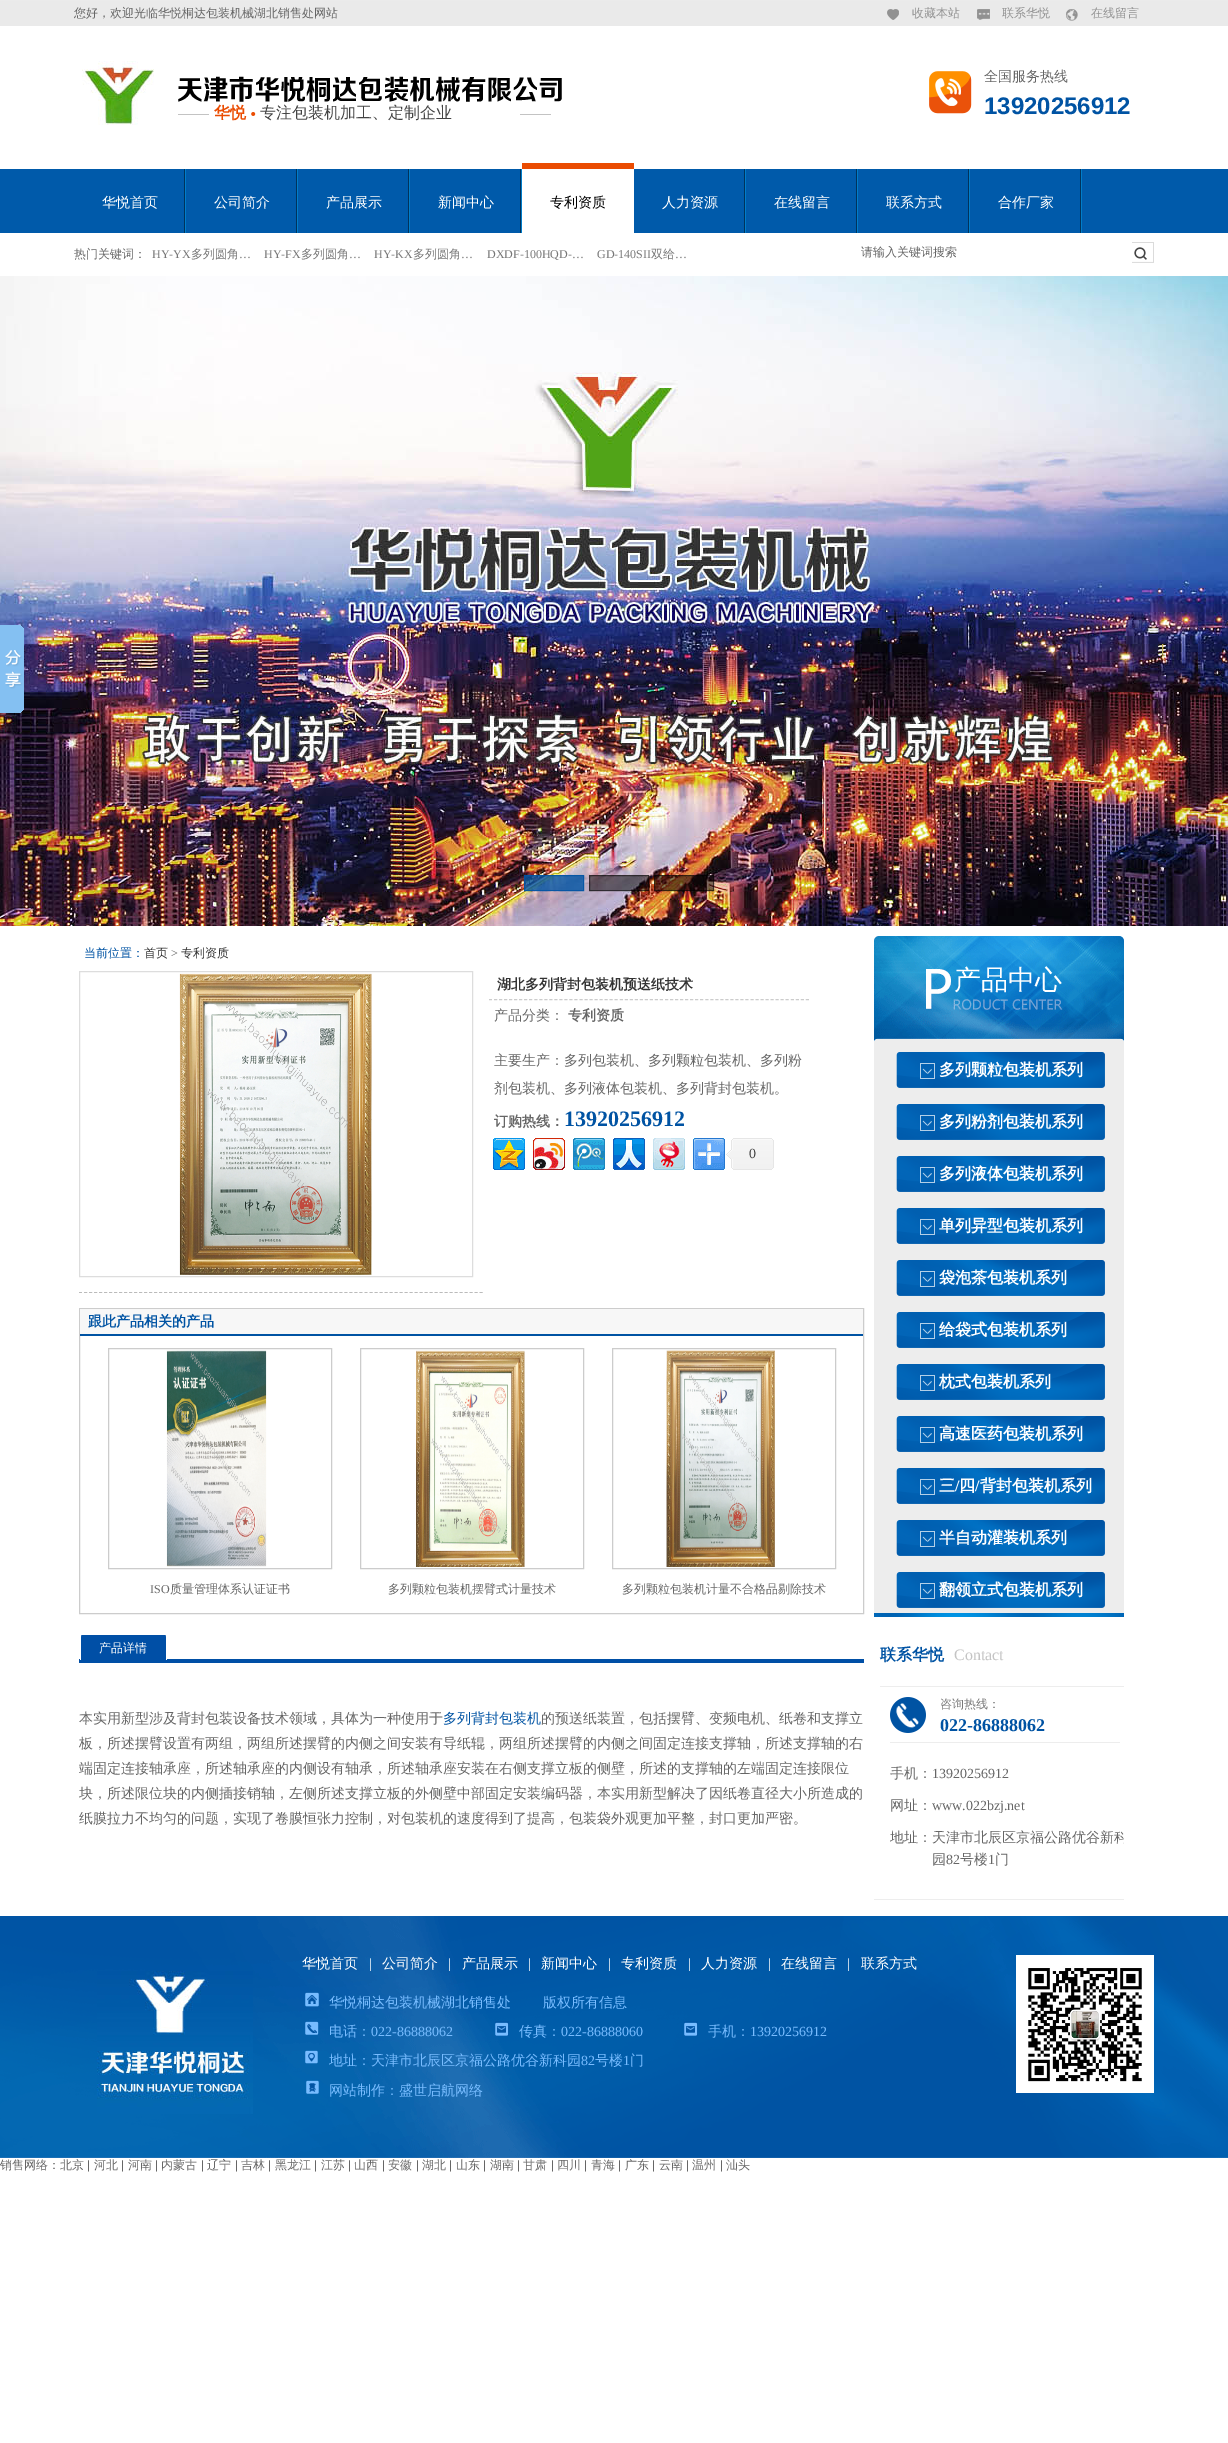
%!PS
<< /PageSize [1228 2443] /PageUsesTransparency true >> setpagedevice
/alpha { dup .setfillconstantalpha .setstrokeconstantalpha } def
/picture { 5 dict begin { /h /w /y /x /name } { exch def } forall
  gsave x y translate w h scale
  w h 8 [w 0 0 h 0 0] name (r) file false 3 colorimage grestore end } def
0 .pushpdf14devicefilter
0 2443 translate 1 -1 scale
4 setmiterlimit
1 setgray
0 0 1228 2443 rectfill
(img1.rgb) 0 0 1228 233 picture
/WenQuanYiZenHei-Medium [12 0 0 -12 0 0] selectfont
0.4 setgray
74 17 moveto (您好，欢迎光临华悦桐达包装机械湖北销售处网站) show
(img2.rgb) 887 9 12 11 picture
0.569 setgray
912 17 moveto (收藏本站) show
(img3.rgb) 977 9 13 11 picture
1002 17 moveto (联系华悦) show
(img4.rgb) 1066 9 12 12 picture
1091 17 moveto (在线留言) show
(img5.rgb) 82 61 72 64 picture
(img6.rgb) 178 76 384 26 picture
(img7.rgb) 178 112 373 4 picture
/WenQuanYiZenHei-Bold [16 0 0 -16 0 0] selectfont
0.918 0.298 0.008 setrgbcolor
214 118 moveto (华悦) show
/WenQuanYiZenHei-Medium [16 0 0 -16 0 0] selectfont
0.267 setgray
260 118 moveto (专注包装机加工、定制企业) show
(img8.rgb) 929 71 43 43 picture
/WenQuanYiZenHei-Medium [14 0 0 -14 0 0] selectfont
0.4 setgray
984 81 moveto (全国服务热线) show
/LiberationSans-Bold [24 0 0 -24 0 0] selectfont
0 0.325 0.639 setrgbcolor
984 114 moveto (13920256912) show
(img9.rgb) 184 169 2 64 picture
/WenQuanYiZenHei-Medium [14 0 0 -14 0 0] selectfont
1 setgray
102 207 moveto (华悦首页) show
(img9.rgb) 296 169 2 64 picture
214 207 moveto (公司简介) show
(img9.rgb) 408 169 2 64 picture
326 207 moveto (产品展示) show
(img9.rgb) 520 169 2 64 picture
438 207 moveto (新闻中心) show
(img10.rgb) 522 163 112 70 picture
0 setgray
550 207 moveto (专利资质) show
(img9.rgb) 744 169 2 64 picture
1 setgray
662 207 moveto (人力资源) show
(img9.rgb) 856 169 2 64 picture
774 207 moveto (在线留言) show
(img9.rgb) 968 169 2 64 picture
886 207 moveto (联系方式) show
(img9.rgb) 1080 169 2 64 picture
998 207 moveto (合作厂家) show
/WenQuanYiZenHei-Medium [12 0 0 -12 0 0] selectfont
0.4 setgray
74 258 moveto (热门关键词：) show
/LiberationSerif-Regular [12 0 0 -12 0 0] selectfont
0.467 setgray
152 258 moveto (HY-YX) show
/WenQuanYiZenHei-Medium [12 0 0 -12 0 0] selectfont
191 258 moveto (多列圆角) show
/LiberationSerif-Regular [12 0 0 -12 0 0] selectfont
239 258 moveto (…) show
264 258 moveto (HY-FX) show
/WenQuanYiZenHei-Medium [12 0 0 -12 0 0] selectfont
301 258 moveto (多列圆角) show
/LiberationSerif-Regular [12 0 0 -12 0 0] selectfont
349 258 moveto (…) show
374 258 moveto (HY-KX) show
/WenQuanYiZenHei-Medium [12 0 0 -12 0 0] selectfont
413 258 moveto (多列圆角) show
/LiberationSerif-Regular [12 0 0 -12 0 0] selectfont
461 258 moveto (…) show
487 258 moveto (DXDF-100HQD-…) show
597 258 moveto (GD-140SII) show
/WenQuanYiZenHei-Medium [12 0 0 -12 0 0] selectfont
651 258 moveto (双给) show
/LiberationSerif-Regular [12 0 0 -12 0 0] selectfont
675 258 moveto (…) show
/WenQuanYiZenHei-Medium [12 0 0 -12 0 0] selectfont
0.4 setgray
861 256 moveto (请输入关键词搜索) show
(img11.rgb) 1132 242 22 21 picture
(img12.rgb) 0 276 1228 650 picture
0.8 alpha
0 0.325 0.639 setrgbcolor
524 875 60 16 rectfill
524.5 875.5 59 15 rectstroke
0.5 alpha
0 setgray
589 875 60 16 rectfill
589.5 875.5 59 15 rectstroke
654 875 60 16 rectfill
654.5 875.5 59 15 rectstroke
1 alpha
(img13.rgb) 0 625 24 88 picture
0 0.325 0.639 setrgbcolor
84 957 moveto (当前位置：) show
0.2 setgray
144 957 moveto (首页) show
/LiberationSerif-Regular [12 0 0 -12 0 0] selectfont
0.4 setgray
171 957 moveto (>) show
/WenQuanYiZenHei-Medium [12 0 0 -12 0 0] selectfont
0.2 setgray
181 957 moveto (专利资质) show
gsave
79 971 405 322 rectclip
0.733 setgray
[3 2.01] 0 setdash
newpath 79 1292.5 moveto 809 1292.5 lineto stroke
grestore
0.867 setgray
79.5 971.5 393 305 rectstroke
(img14.rgb) 179 973 193 302 picture
0.8 setgray
[3 2.03] 0 setdash
newpath 489 999.5 moveto 809 999.5 lineto stroke
/WenQuanYiZenHei-Bold [14 0 0 -14 0 0] selectfont
0.2 setgray
497 989 moveto (湖北多列背封包装机预送纸技术) show
/WenQuanYiZenHei-Medium [14 0 0 -14 0 0] selectfont
0.4 setgray
494 1020 moveto (产品分类：) show
/WenQuanYiZenHei-Bold [14 0 0 -14 0 0] selectfont
568 1020 moveto (专利资质) show
/WenQuanYiZenHei-Medium [14 0 0 -14 0 0] selectfont
494 1065 moveto (主要生产：多列包装机、多列颗粒包装机、多列粉) show
494 1093 moveto (剂包装机、多列液体包装机、多列背封包装机。) show
/WenQuanYiZenHei-Bold [14 0 0 -14 0 0] selectfont
494 1126 moveto (订购热线：) show
/LiberationSerif-Bold [22 0 0 -22 0 0] selectfont
0 0.325 0.639 setrgbcolor
564 1126 moveto (13920256912) show
(img15.rgb) 493 1138 32 32 picture
(img16.rgb) 533 1138 32 32 picture
(img17.rgb) 573 1138 32 32 picture
(img18.rgb) 613 1138 32 32 picture
(img19.rgb) 653 1138 32 32 picture
(img20.rgb) 693 1138 32 32 picture
(img21.rgb) 726 1138 48 32 picture
/LiberationSerif-Regular [14 0 0 -14 0 0] selectfont
0.267 setgray
749 1158 moveto (0) show
0.8 setgray
[] 0 setdash
79.5 1308.5 784 305 rectstroke
0.969 setgray
80 1309 783 25 rectfill
0 0.325 0.639 setrgbcolor
80 1334 783 2 rectfill
/WenQuanYiZenHei-Bold [14 0 0 -14 0 0] selectfont
88 1326 moveto (跟此产品相关的产品) show
0.8 setgray
108.5 1348.5 223 220 rectstroke
(img22.rgb) 166 1350 101 217 picture
/LiberationSerif-Regular [12 0 0 -12 0 0] selectfont
0.4 setgray
150 1593 moveto (ISO) show
/WenQuanYiZenHei-Medium [12 0 0 -12 0 0] selectfont
170 1593 moveto (质量管理体系认证证书) show
0.8 setgray
360.5 1348.5 223 220 rectstroke
(img23.rgb) 416 1350 109 217 picture
0.4 setgray
388 1593 moveto (多列颗粒包装机摆臂式计量技术) show
0.8 setgray
612.5 1348.5 223 220 rectstroke
(img24.rgb) 666 1350 109 217 picture
0.4 setgray
622 1593 moveto (多列颗粒包装机计量不合格品剔除技术) show
0 0.31 0.651 setrgbcolor
79 1659 785 4 rectfill
(img25.rgb) 80 1635 4 25 picture
(img26.rgb) 84 1635 83 25 picture
1 setgray
99 1652 moveto (产品详情) show
/WenQuanYiZenHei-Medium [14 0 0 -14 0 0] selectfont
0.4 setgray
79 1723 moveto (本实用新型涉及背封包装设备技术领域，具体为一种使用于) show
0 0.325 0.639 setrgbcolor
443 1723 moveto (多列背封包装机) show
0.4 setgray
541 1723 moveto (的预送纸装置，包括摆臂、变频电机、纸卷和支撑立) show
79 1748 moveto (板，所述摆臂设置有两组，两组所述摆臂的内侧之间安装有导纸辊，两组所述摆臂的内侧之间固定连接支撑轴，所述支撑轴的右) show
79 1773 moveto (端固定连接轴承座，所述轴承座的内侧设有轴承，所述轴承座安装在右侧支撑立板的侧壁，所述的支撑轴的左端固定连接限位) show
79 1798 moveto (块，所述限位块的内侧插接销轴，左侧所述支撑立板的外侧壁中部固定安装编码器，本实用新型解决了因纸卷直径大小所造成的) show
79 1823 moveto (纸膜拉力不均匀的问题，实现了卷膜恒张力控制，对包装机的速度得到了提高，包装袋外观更加平整，封口更加严密。) show
(img27.rgb) 874 936 250 105 picture
/WenQuanYiZenHei-Medium [27 0 0 -27 0 0] selectfont
1 setgray
954 989 moveto (产品中心) show
0.929 setgray
874 1041 250 572 rectfill
(img28.rgb) 896 1052 209 36 picture
/WenQuanYiZenHei-Bold [16 0 0 -16 0 0] selectfont
1 setgray
939 1075 moveto (多列颗粒包装机系列) show
(img28.rgb) 896 1104 209 36 picture
939 1127 moveto (多列粉剂包装机系列) show
(img28.rgb) 896 1156 209 36 picture
939 1179 moveto (多列液体包装机系列) show
(img28.rgb) 896 1208 209 36 picture
939 1231 moveto (单列异型包装机系列) show
(img28.rgb) 896 1260 209 36 picture
939 1283 moveto (袋泡茶包装机系列) show
(img28.rgb) 896 1312 209 36 picture
939 1335 moveto (给袋式包装机系列) show
(img28.rgb) 896 1364 209 36 picture
939 1387 moveto (枕式包装机系列) show
(img28.rgb) 896 1416 209 36 picture
939 1439 moveto (高速医药包装机系列) show
(img28.rgb) 896 1468 209 36 picture
939 1491 moveto (三) show
/LiberationSerif-Bold [16 0 0 -16 0 0] selectfont
955 1491 moveto (/) show
/WenQuanYiZenHei-Bold [16 0 0 -16 0 0] selectfont
959 1491 moveto (四) show
/LiberationSerif-Bold [16 0 0 -16 0 0] selectfont
975 1491 moveto (/) show
/WenQuanYiZenHei-Bold [16 0 0 -16 0 0] selectfont
980 1491 moveto (背封包装机系列) show
(img28.rgb) 896 1520 209 36 picture
939 1543 moveto (半自动灌装机系列) show
(img28.rgb) 896 1572 209 36 picture
939 1595 moveto (翻领立式包装机系列) show
(img29.rgb) 874 1613 250 4 picture
0.929 setgray
874 1899 250 1 rectfill
880 1686 244 1 rectfill
0 0.325 0.639 setrgbcolor
880 1660 moveto (联系华悦) show
/LiberationSerif-Regular [16 0 0 -16 0 0] selectfont
0.769 setgray
954 1660 moveto (Contact) show
0.929 setgray
890 1742 230 1 rectfill
(img30.rgb) 890 1697 36 36 picture
/WenQuanYiZenHei-Medium [12 0 0 -12 0 0] selectfont
0.467 setgray
940 1708 moveto (咨询热线：) show
/LiberationSerif-Bold [18 0 0 -18 0 0] selectfont
0 0.325 0.639 setrgbcolor
940 1731 moveto (022-86888062) show
/WenQuanYiZenHei-Medium [14 0 0 -14 0 0] selectfont
0.4 setgray
890 1778 moveto (手机：) show
/LiberationSerif-Regular [14 0 0 -14 0 0] selectfont
932 1778 moveto (13920256912) show
/WenQuanYiZenHei-Medium [14 0 0 -14 0 0] selectfont
890 1810 moveto (网址：) show
/LiberationSerif-Regular [14 0 0 -14 0 0] selectfont
932 1810 moveto (www.022bzj.net) show
/WenQuanYiZenHei-Medium [14 0 0 -14 0 0] selectfont
890 1842 moveto (地址：) show
gsave
874 1617 250 282 rectclip
932 1842 moveto (天津市北辰区京福公路优谷新科) show
grestore
932 1864 moveto (园) show
/LiberationSerif-Regular [14 0 0 -14 0 0] selectfont
946 1864 moveto (82) show
/WenQuanYiZenHei-Medium [14 0 0 -14 0 0] selectfont
960 1864 moveto (号楼) show
/LiberationSerif-Regular [14 0 0 -14 0 0] selectfont
988 1864 moveto (1) show
/WenQuanYiZenHei-Medium [14 0 0 -14 0 0] selectfont
995 1864 moveto (门) show
(img31.rgb) 0 1916 1228 242 picture
(img32.rgb) 97 1971 156 143 picture
1 setgray
302 1968 moveto (华悦首页) show
/LiberationSerif-Regular [14 0 0 -14 0 0] selectfont
369 1968 moveto (|) show
/WenQuanYiZenHei-Medium [14 0 0 -14 0 0] selectfont
382 1968 moveto (公司简介) show
/LiberationSerif-Regular [14 0 0 -14 0 0] selectfont
448 1968 moveto (|) show
/WenQuanYiZenHei-Medium [14 0 0 -14 0 0] selectfont
462 1968 moveto (产品展示) show
/LiberationSerif-Regular [14 0 0 -14 0 0] selectfont
528 1968 moveto (|) show
/WenQuanYiZenHei-Medium [14 0 0 -14 0 0] selectfont
541 1968 moveto (新闻中心) show
/LiberationSerif-Regular [14 0 0 -14 0 0] selectfont
608 1968 moveto (|) show
/WenQuanYiZenHei-Medium [14 0 0 -14 0 0] selectfont
621 1968 moveto (专利资质) show
/LiberationSerif-Regular [14 0 0 -14 0 0] selectfont
688 1968 moveto (|) show
/WenQuanYiZenHei-Medium [14 0 0 -14 0 0] selectfont
701 1968 moveto (人力资源) show
/LiberationSerif-Regular [14 0 0 -14 0 0] selectfont
768 1968 moveto (|) show
/WenQuanYiZenHei-Medium [14 0 0 -14 0 0] selectfont
781 1968 moveto (在线留言) show
/LiberationSerif-Regular [14 0 0 -14 0 0] selectfont
847 1968 moveto (|) show
/WenQuanYiZenHei-Medium [14 0 0 -14 0 0] selectfont
861 1968 moveto (联系方式) show
(img33.rgb) 305 1992 14 15 picture
0.471 0.737 1 setrgbcolor
329 2007 moveto (华悦桐达包装机械湖北销售处) show
543 2007 moveto (版权所有信息) show
(img34.rgb) 305 2021 14 14 picture
329 2036 moveto (电话：) show
/LiberationSerif-Regular [14 0 0 -14 0 0] selectfont
371 2036 moveto (022-86888062) show
(img35.rgb) 495 2021 14 15 picture
/WenQuanYiZenHei-Medium [14 0 0 -14 0 0] selectfont
519 2036 moveto (传真：) show
/LiberationSerif-Regular [14 0 0 -14 0 0] selectfont
561 2036 moveto (022-86888060) show
(img35.rgb) 684 2021 14 15 picture
/WenQuanYiZenHei-Medium [14 0 0 -14 0 0] selectfont
708 2036 moveto (手机：) show
/LiberationSerif-Regular [14 0 0 -14 0 0] selectfont
750 2036 moveto (13920256912) show
(img36.rgb) 305 2050 13 14 picture
/WenQuanYiZenHei-Medium [14 0 0 -14 0 0] selectfont
329 2065 moveto (地址：天津市北辰区京福公路优谷新科园) show
/LiberationSerif-Regular [14 0 0 -14 0 0] selectfont
581 2065 moveto (82) show
/WenQuanYiZenHei-Medium [14 0 0 -14 0 0] selectfont
595 2065 moveto (号楼) show
/LiberationSerif-Regular [14 0 0 -14 0 0] selectfont
623 2065 moveto (1) show
/WenQuanYiZenHei-Medium [14 0 0 -14 0 0] selectfont
630 2065 moveto (门) show
(img37.rgb) 306 2080 13 14 picture
329 2095 moveto (网站制作：盛世启航网络) show
(img38.rgb) 1016 1955 138 138 picture
/WenQuanYiZenHei-Medium [12 0 0 -12 0 0] selectfont
0.4 setgray
0 2169 moveto (销售网络：北京) show
/LiberationSans-Regular [12 0 0 -12 0 0] selectfont
87 2169 moveto (|) show
/WenQuanYiZenHei-Medium [12 0 0 -12 0 0] selectfont
94 2169 moveto (河北) show
/LiberationSans-Regular [12 0 0 -12 0 0] selectfont
121 2169 moveto (|) show
/WenQuanYiZenHei-Medium [12 0 0 -12 0 0] selectfont
128 2169 moveto (河南) show
/LiberationSans-Regular [12 0 0 -12 0 0] selectfont
155 2169 moveto (|) show
/WenQuanYiZenHei-Medium [12 0 0 -12 0 0] selectfont
161 2169 moveto (内蒙古) show
/LiberationSans-Regular [12 0 0 -12 0 0] selectfont
201 2169 moveto (|) show
/WenQuanYiZenHei-Medium [12 0 0 -12 0 0] selectfont
207 2169 moveto (辽宁) show
/LiberationSans-Regular [12 0 0 -12 0 0] selectfont
235 2169 moveto (|) show
/WenQuanYiZenHei-Medium [12 0 0 -12 0 0] selectfont
241 2169 moveto (吉林) show
/LiberationSans-Regular [12 0 0 -12 0 0] selectfont
268 2169 moveto (|) show
/WenQuanYiZenHei-Medium [12 0 0 -12 0 0] selectfont
275 2169 moveto (黑龙江) show
/LiberationSans-Regular [12 0 0 -12 0 0] selectfont
314 2169 moveto (|) show
/WenQuanYiZenHei-Medium [12 0 0 -12 0 0] selectfont
321 2169 moveto (江苏) show
/LiberationSans-Regular [12 0 0 -12 0 0] selectfont
348 2169 moveto (|) show
/WenQuanYiZenHei-Medium [12 0 0 -12 0 0] selectfont
354 2169 moveto (山西) show
/LiberationSans-Regular [12 0 0 -12 0 0] selectfont
382 2169 moveto (|) show
/WenQuanYiZenHei-Medium [12 0 0 -12 0 0] selectfont
388 2169 moveto (安徽) show
/LiberationSans-Regular [12 0 0 -12 0 0] selectfont
416 2169 moveto (|) show
/WenQuanYiZenHei-Medium [12 0 0 -12 0 0] selectfont
422 2169 moveto (湖北) show
/LiberationSans-Regular [12 0 0 -12 0 0] selectfont
449 2169 moveto (|) show
/WenQuanYiZenHei-Medium [12 0 0 -12 0 0] selectfont
456 2169 moveto (山东) show
/LiberationSans-Regular [12 0 0 -12 0 0] selectfont
483 2169 moveto (|) show
/WenQuanYiZenHei-Medium [12 0 0 -12 0 0] selectfont
490 2169 moveto (湖南) show
/LiberationSans-Regular [12 0 0 -12 0 0] selectfont
517 2169 moveto (|) show
/WenQuanYiZenHei-Medium [12 0 0 -12 0 0] selectfont
523 2169 moveto (甘肃) show
/LiberationSans-Regular [12 0 0 -12 0 0] selectfont
551 2169 moveto (|) show
/WenQuanYiZenHei-Medium [12 0 0 -12 0 0] selectfont
557 2169 moveto (四川) show
/LiberationSans-Regular [12 0 0 -12 0 0] selectfont
584 2169 moveto (|) show
/WenQuanYiZenHei-Medium [12 0 0 -12 0 0] selectfont
591 2169 moveto (青海) show
/LiberationSans-Regular [12 0 0 -12 0 0] selectfont
618 2169 moveto (|) show
/WenQuanYiZenHei-Medium [12 0 0 -12 0 0] selectfont
625 2169 moveto (广东) show
/LiberationSans-Regular [12 0 0 -12 0 0] selectfont
652 2169 moveto (|) show
/WenQuanYiZenHei-Medium [12 0 0 -12 0 0] selectfont
659 2169 moveto (云南) show
/LiberationSans-Regular [12 0 0 -12 0 0] selectfont
686 2169 moveto (|) show
/WenQuanYiZenHei-Medium [12 0 0 -12 0 0] selectfont
692 2169 moveto (温州) show
/LiberationSans-Regular [12 0 0 -12 0 0] selectfont
720 2169 moveto (|) show
/WenQuanYiZenHei-Medium [12 0 0 -12 0 0] selectfont
726 2169 moveto (汕头) show
.poppdf14devicefilter showpage
